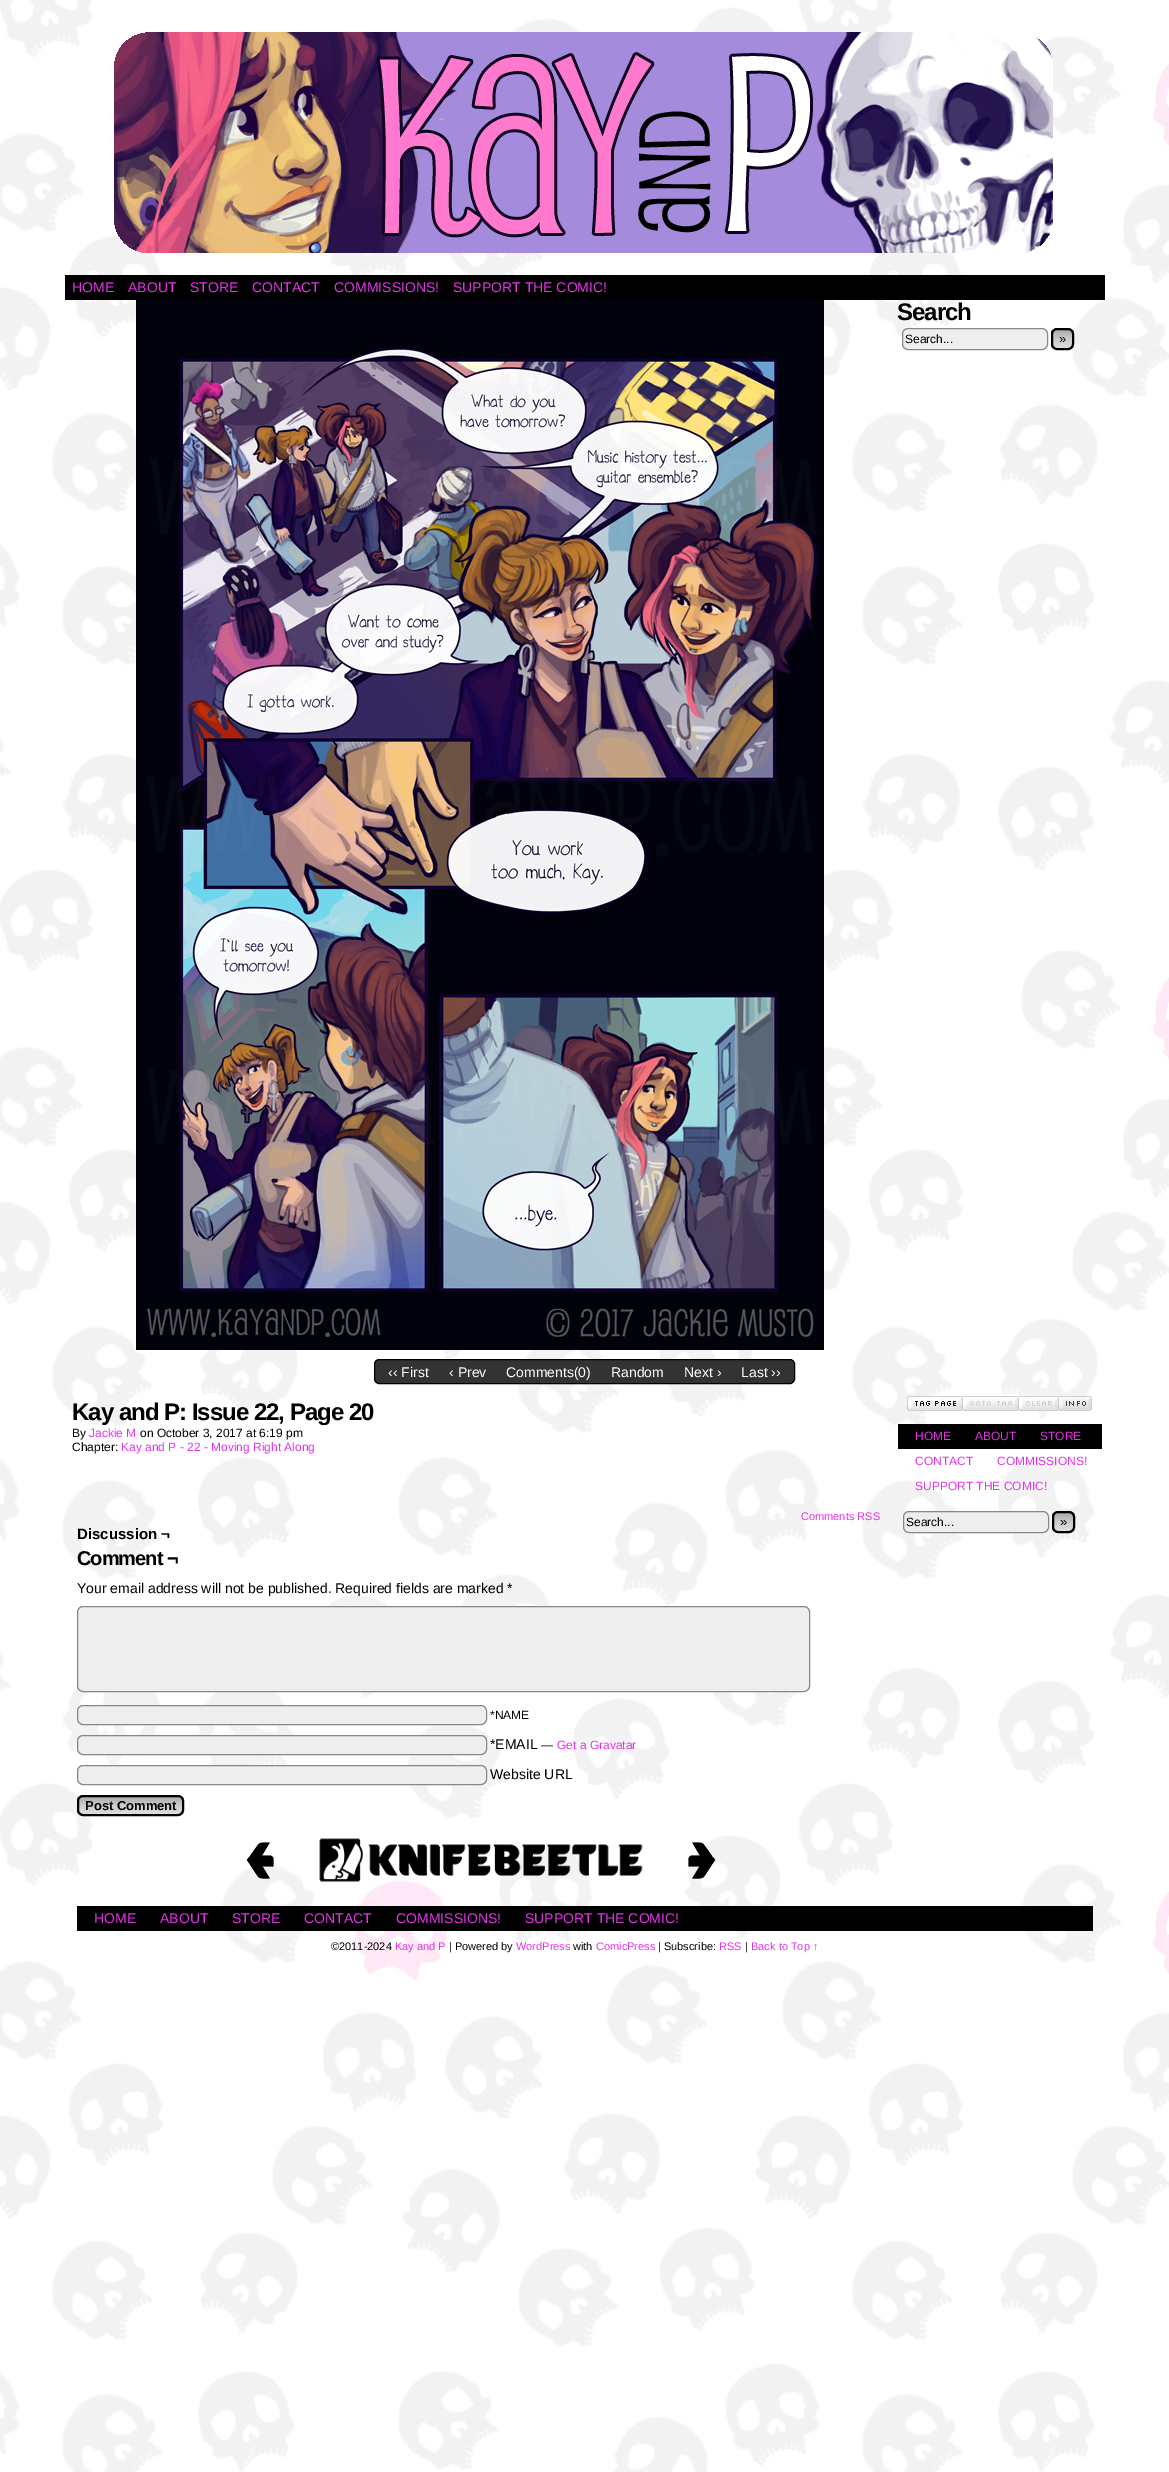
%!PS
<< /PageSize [1169 2472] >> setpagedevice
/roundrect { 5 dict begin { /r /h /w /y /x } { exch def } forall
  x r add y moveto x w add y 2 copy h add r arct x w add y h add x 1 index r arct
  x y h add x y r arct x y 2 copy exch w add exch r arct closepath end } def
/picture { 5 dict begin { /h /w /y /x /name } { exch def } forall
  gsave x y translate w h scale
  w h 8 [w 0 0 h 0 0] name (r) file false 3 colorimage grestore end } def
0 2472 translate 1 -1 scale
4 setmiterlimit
1 setgray
0 0 1169 2472 rectfill
(img1.rgb) 0 0 1169 2472 picture
(img2.rgb) 114 32 939 221 picture
0 setgray
65 275 1040 25 rectfill
/LiberationSans-Regular [14 0 0 -14 0 0] selectfont
0.886 0.204 0.898 setrgbcolor
72 292 moveto (HOME) show
128 292 moveto (ABOUT) show
190 292 moveto (STORE) show
252 292 moveto (CONTACT) show
334 292 moveto (COMMISSIONS!) show
453 292 moveto (SUPPORT THE COMIC!) show
(img3.rgb) 136 300 688 1050 picture
/LiberationSans-Bold [24 0 0 -24 0 0] selectfont
0 setgray
897 320 moveto -1 0 (Search) ashow
0.933 setgray
902.5 328.5 145 21 5.5 roundrect gsave fill grestore
0.533 setgray
stroke
/LiberationSans-Regular [12 0 0 -12 0 0] selectfont
0 setgray
905 343 moveto (Search...) show
gsave
1051 328 23 22 6 roundrect clip newpath
gsave newpath 1051 330 moveto 1074 330 lineto 1074 348 lineto 1051 348 lineto closepath clip newpath
<< /ShadingType 2 /ColorSpace /DeviceRGB /Coords [1063 330 1063 348] /Extend [true true] /Function << /FunctionType 3 /Domain [0 1] /Functions [<< /FunctionType 2 /Domain [0 1] /C0 [0.667 0.667 0.667] /C1 [0.8 0.8 0.8] /N 1 >> << /FunctionType 2 /Domain [0 1] /C0 [0.8 0.8 0.8] /C1 [0.867 0.867 0.867] /N 1 >>] /Bounds [0.5] /Encode [0 1 0 1] >> >> shfill grestore
grestore
2 setlinewidth
1052 329 21 20 5 roundrect stroke
/LiberationSans-Regular [13 0 0 -13 0 0] selectfont
1059 343 moveto (») show
0.2 setgray
374.5 1359.5 420 24 4.5 roundrect gsave fill grestore
0 setgray
1 setlinewidth
stroke
/LiberationSans-Regular [14 0 0 -14 0 0] selectfont
1 setgray
388 1377 moveto (‹‹ First) show
449 1377 moveto (‹ Prev) show
506 1377 moveto (Comments\(0\)) show
611 1377 moveto (Random) show
684 1377 moveto (Next ›) show
741 1377 moveto (Last ››) show
/LiberationSans-Bold [24 0 0 -24 0 0] selectfont
0 setgray
72 1420 moveto -1 0 (Kay and P: Issue 22, Page 20) ashow
/LiberationSans-Regular [12 0 0 -12 0 0] selectfont
72 1437 moveto (By) show
0.886 0.204 0.898 setrgbcolor
89 1437 moveto (Jackie M) show
0 setgray
140 1437 moveto (on October 3, 2017 at 6:19 pm) show
72 1451 moveto (Chapter:) show
0.886 0.204 0.898 setrgbcolor
121 1451 moveto (Kay and P - 22 - Moving Right Along) show
/LiberationSans-Regular [11 0 0 -11 0 0] selectfont
801 1520 moveto (Comments RSS) show
/LiberationSans-Bold [15 0 0 -15 0 0] selectfont
0 setgray
77 1539 moveto (Discussion ¬) show
/LiberationSans-Bold [20 0 0 -20 0 0] selectfont
77 1565 moveto -1 0 (Comment ¬) ashow
/LiberationSans-Regular [14 0 0 -14 0 0] selectfont
77 1593 moveto (Your email address will not be published. Required fields are marked *) show
0.933 setgray
77.5 1606.5 732 85 5.5 roundrect gsave fill grestore
0.533 setgray
stroke
0.933 setgray
77.5 1705.5 409 19 5.5 roundrect gsave fill grestore
0.533 setgray
stroke
/LiberationSans-Regular [12 0 0 -12 0 0] selectfont
0 setgray
490 1719 moveto (*NAME) show
0.933 setgray
77.5 1735.5 409 19 5.5 roundrect gsave fill grestore
0.533 setgray
stroke
/LiberationSans-Regular [14 0 0 -14 0 0] selectfont
0 setgray
490 1749 moveto (*EMAIL) show
/LiberationSans-Regular [12 0 0 -12 0 0] selectfont
541 1749 moveto (—) show
0.886 0.204 0.898 setrgbcolor
557 1749 moveto (Get a Gravatar) show
0.933 setgray
77.5 1765.5 409 19 5.5 roundrect gsave fill grestore
0.533 setgray
stroke
/LiberationSans-Regular [14 0 0 -14 0 0] selectfont
0 setgray
490 1779 moveto (Website URL) show
gsave
77 1795 107 21 6 roundrect clip newpath
gsave newpath 77 1797 moveto 184 1797 lineto 184 1814 lineto 77 1814 lineto closepath clip newpath
<< /ShadingType 2 /ColorSpace /DeviceRGB /Coords [131 1797 131 1814] /Extend [true true] /Function << /FunctionType 3 /Domain [0 1] /Functions [<< /FunctionType 2 /Domain [0 1] /C0 [0.667 0.667 0.667] /C1 [0.8 0.8 0.8] /N 1 >> << /FunctionType 2 /Domain [0 1] /C0 [0.8 0.8 0.8] /C1 [0.867 0.867 0.867] /N 1 >>] /Bounds [0.5] /Encode [0 1 0 1] >> >> shfill grestore
grestore
2 setlinewidth
78 1796 105 19 5 roundrect stroke
/LiberationSans-Bold [13 0 0 -13 0 0] selectfont
85 1810 moveto (Post Comment) show
(img4.rgb) 246 1842 28 37 picture
(img5.rgb) 319 1838 324 44 picture
(img6.rgb) 688 1842 28 37 picture
(img7.rgb) 907 1396 56 15 picture
(img8.rgb) 963 1396 56 15 picture
(img9.rgb) 1019 1396 40 15 picture
(img10.rgb) 1059 1396 33 15 picture
898 1424 204 25 rectfill
/LiberationSans-Regular [12 0 0 -12 0 0] selectfont
0.886 0.204 0.898 setrgbcolor
915 1440 moveto (HOME) show
975 1440 moveto (ABOUT) show
1040 1440 moveto (STORE) show
915 1465 moveto (CONTACT) show
997 1465 moveto (COMMISSIONS!) show
915 1490 moveto (SUPPORT THE COMIC!) show
0.933 setgray
903.5 1511.5 145 21 5.5 roundrect gsave fill grestore
0.533 setgray
1 setlinewidth
stroke
0 setgray
906 1526 moveto (Search...) show
gsave
1052 1511 23 22 6 roundrect clip newpath
gsave newpath 1052 1513 moveto 1075 1513 lineto 1075 1531 lineto 1052 1531 lineto closepath clip newpath
<< /ShadingType 2 /ColorSpace /DeviceRGB /Coords [1064 1513 1064 1531] /Extend [true true] /Function << /FunctionType 3 /Domain [0 1] /Functions [<< /FunctionType 2 /Domain [0 1] /C0 [0.667 0.667 0.667] /C1 [0.8 0.8 0.8] /N 1 >> << /FunctionType 2 /Domain [0 1] /C0 [0.8 0.8 0.8] /C1 [0.867 0.867 0.867] /N 1 >>] /Bounds [0.5] /Encode [0 1 0 1] >> >> shfill grestore
grestore
2 setlinewidth
1053 1512 21 20 5 roundrect stroke
/LiberationSans-Regular [13 0 0 -13 0 0] selectfont
1060 1526 moveto (») show
77 1906 1016 25 rectfill
/LiberationSans-Regular [14 0 0 -14 0 0] selectfont
0.886 0.204 0.898 setrgbcolor
94 1923 moveto (HOME) show
160 1923 moveto (ABOUT) show
232 1923 moveto (STORE) show
304 1923 moveto (CONTACT) show
396 1923 moveto (COMMISSIONS!) show
525 1923 moveto (SUPPORT THE COMIC!) show
/LiberationSans-Regular [11 0 0 -11 0 0] selectfont
0 setgray
331 1950 moveto (©2011-2024) show
0.886 0.204 0.898 setrgbcolor
395 1950 moveto (Kay and P) show
0 setgray
449 1950 moveto (| Powered by) show
0.886 0.204 0.898 setrgbcolor
516 1950 moveto (WordPress) show
0 setgray
573 1950 moveto (with) show
0.886 0.204 0.898 setrgbcolor
596 1950 moveto (ComicPress) show
0 setgray
658 1950 moveto (| Subscribe:) show
0.886 0.204 0.898 setrgbcolor
719 1950 moveto (RSS) show
0 setgray
745 1950 moveto (|) show
0.886 0.204 0.898 setrgbcolor
751 1950 moveto (Back to Top ↑) show
showpage
